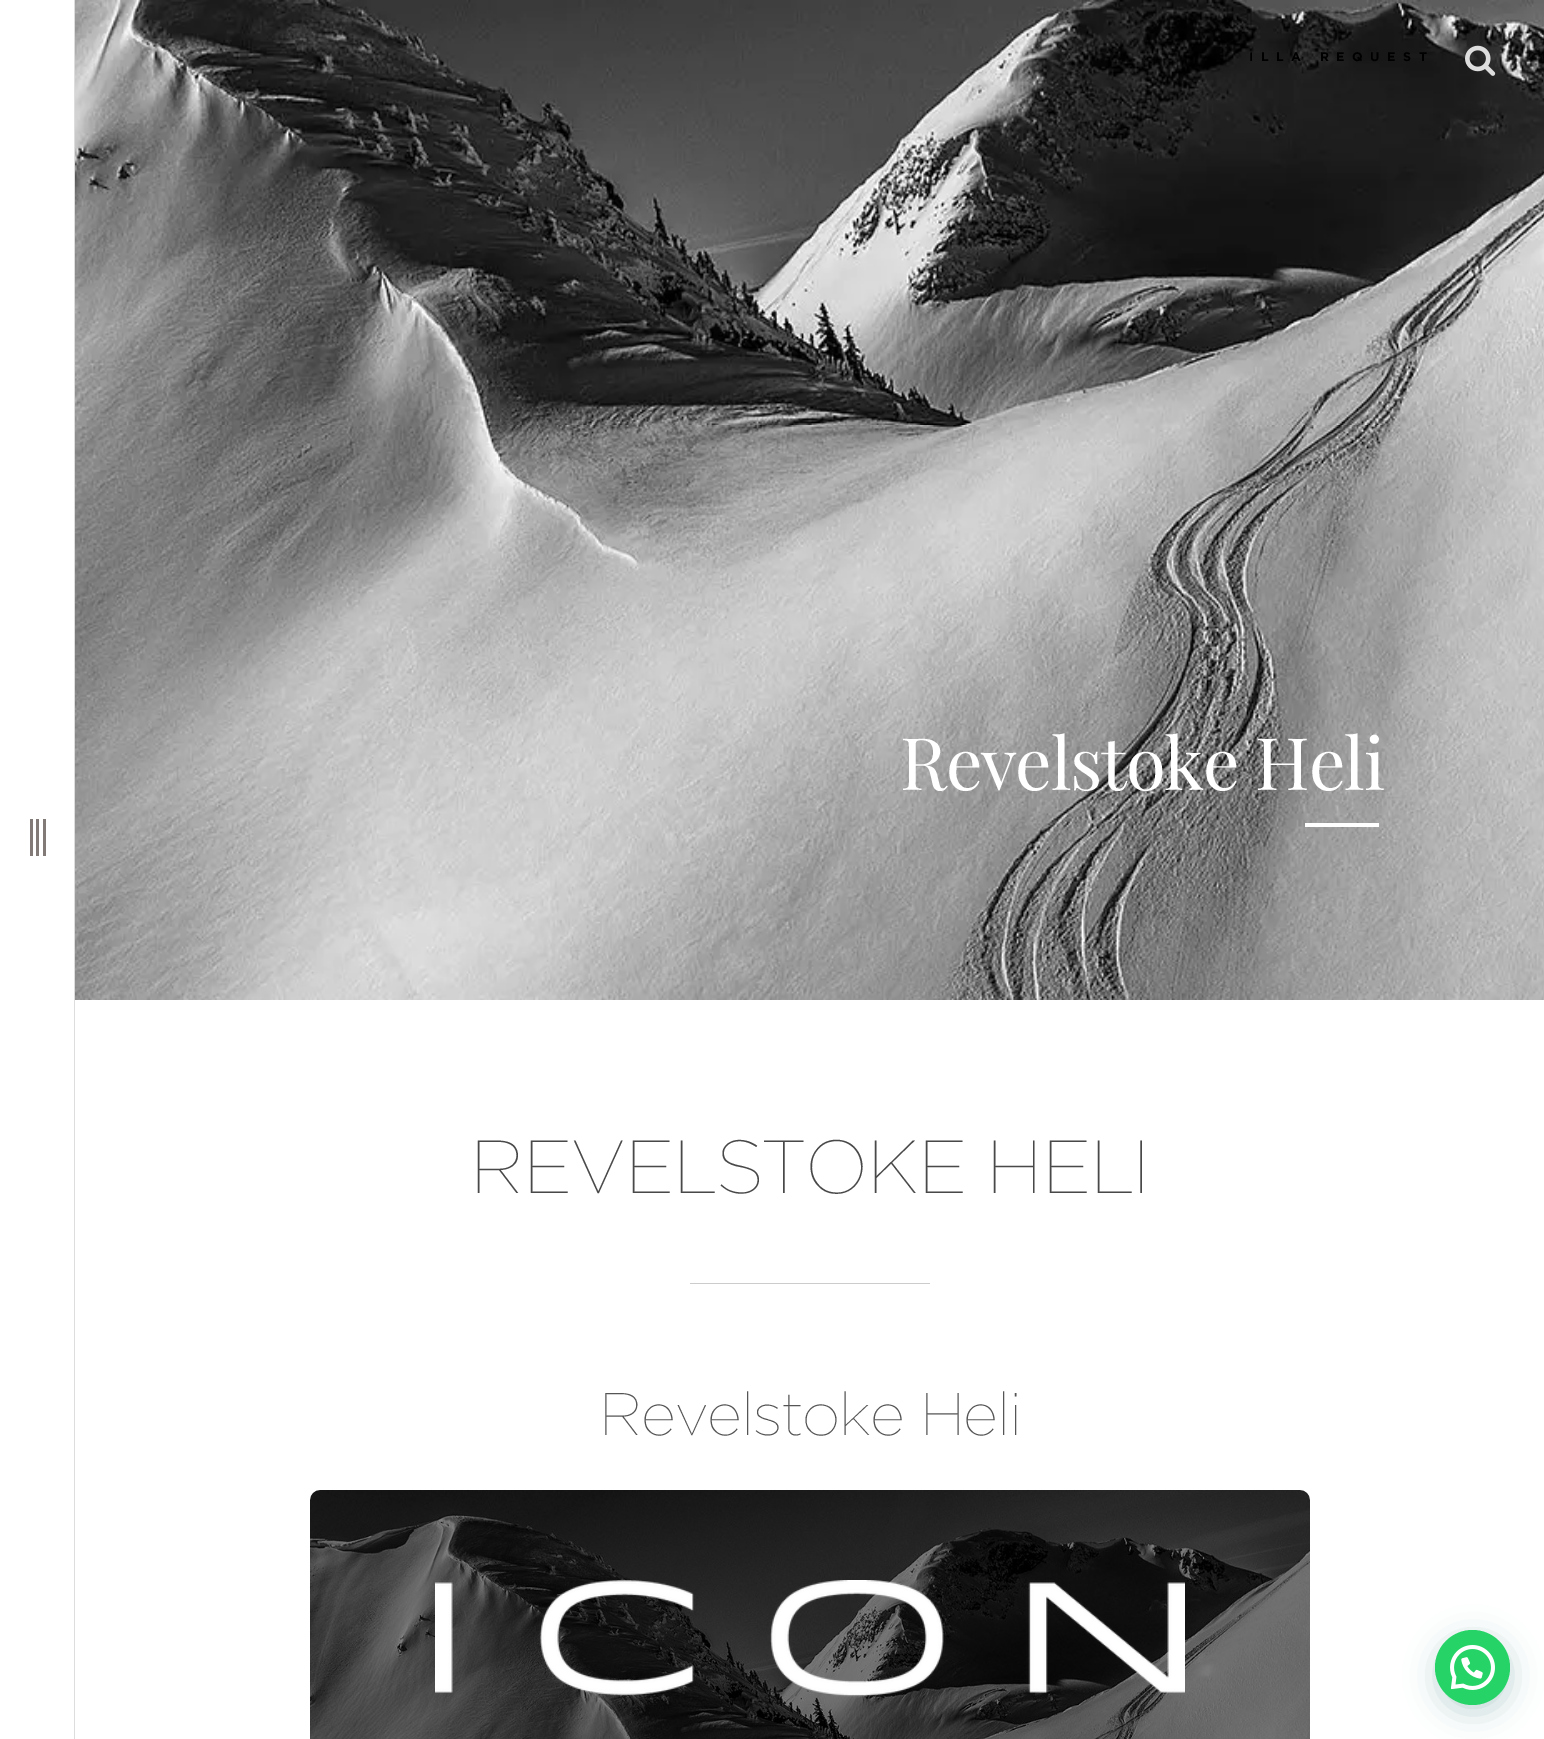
%!PS
<< /PageSize [1544 1739] /PageUsesTransparency true >> setpagedevice
/alpha { dup .setfillconstantalpha .setstrokeconstantalpha } def
/roundrect { 5 dict begin { /r /h /w /y /x } { exch def } forall
  x r add y moveto x w add y 2 copy h add r arct x w add y h add x 1 index r arct
  x y h add x y r arct x y 2 copy exch w add exch r arct closepath end } def
/shadow { 12 dict begin { /a /b /q /h /w /y /x } { exch def } forall gsave /was 0 def
  9 -2 -9 { dup b mul 4 div /e exch def 1 sub .425 mul 2.718 exch exp 1 add a .99 .min exch div /now exch def
    1 1 now sub 1 was sub div sub alpha /was now def
    w h .min e 2 mul add 0 gt { x e sub y e sub w e 2 mul add h e 2 mul add
      q e add b .6 mul add w h .min 2 div e add .min 0 .max roundrect fill } if } for grestore end } def
/picture { 5 dict begin { /h /w /y /x /name } { exch def } forall
  gsave x y translate w h scale
  w h 8 [w 0 0 h 0 0] name (r) file false 3 colorimage grestore end } def
0 .pushpdf14devicefilter
0 1739 translate 1 -1 scale
4 setmiterlimit
1 setgray
0 0 1544 1739 rectfill
0.867 setgray
74 0 1 1739 rectfill
0.506 0.478 0.467 setrgbcolor
36 819 3 37 rectfill
30 819 3 37 rectfill
43 819 3 37 rectfill
(img3.rgb) 75 0 1469 1000 picture
/Gotham-Bold [12.5 0 0 -12.5 0 0] selectfont
0 setgray
1249 61 moveto 7.5 0 (ILLA REQUEST) ashow
(img1.rgb) 1465 45 31 31 picture
/Gotham-Thin [75 0 0 -75 0 0] selectfont
0.286 setgray
470 1193 moveto -1.25 0 (REVELSTOKE HELI) ashow
0.8 setgray
690 1283 240 1 rectfill
/Gotham-Thin [60 0 0 -60 0 0] selectfont
0.333 setgray
599 1435 moveto -1.25 0 (Revelstoke Heli) ashow
(img2.rgb) 310 1490 1000 249 picture
/PlayfairDisplay-Regular [72.5 0 0 -72.5 0 0] selectfont
1 setgray
900 790 moveto -1.25 0 (Revelstoke Heli) ashow
1305 823 74 4 rectfill
0.027 0.369 0.329 setrgbcolor
1436 1638 75 75 37.5 15 0.24 shadow
0.145 0.827 0.4 setrgbcolor
newpath 1472.5 1667.5 37.5 0 360 arc closepath fill
(img4.rgb) 1450 1645 45 45 picture
.poppdf14devicefilter showpage
